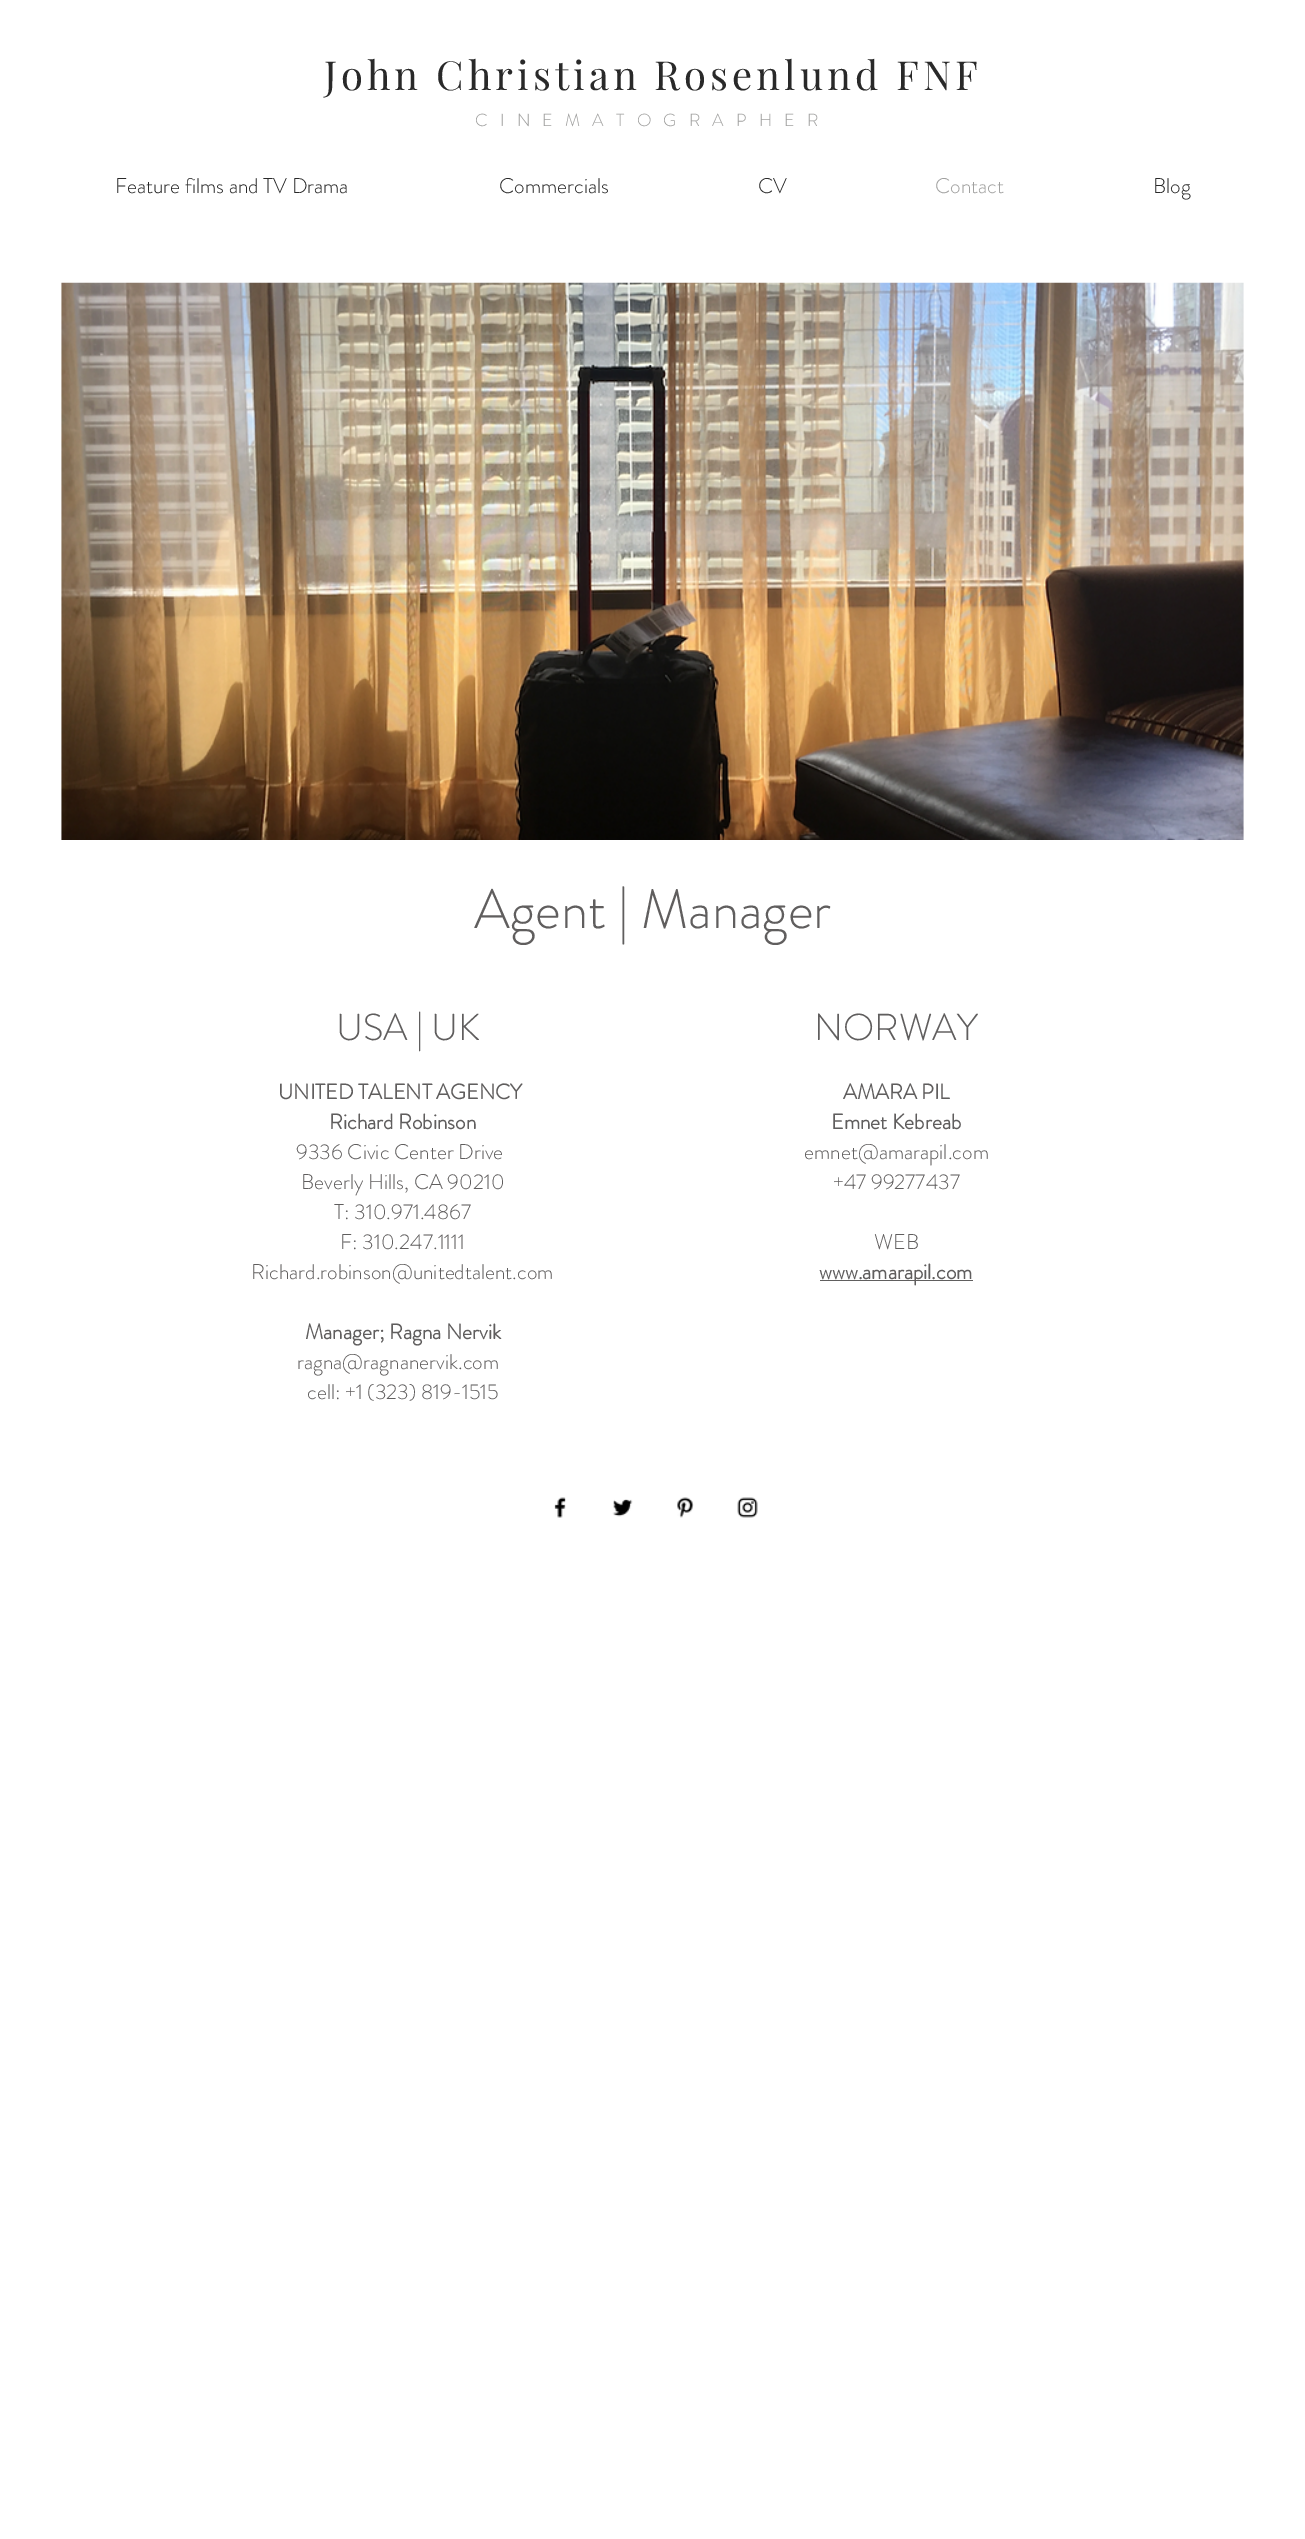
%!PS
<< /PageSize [1305 2539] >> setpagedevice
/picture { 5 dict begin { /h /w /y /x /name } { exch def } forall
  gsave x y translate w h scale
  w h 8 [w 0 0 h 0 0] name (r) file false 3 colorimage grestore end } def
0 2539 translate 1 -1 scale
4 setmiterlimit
1 setgray
0 0 1305 2539 rectfill
/PlayfairDisplay-Regular [40 0 0 -40 0 0] selectfont
0.161 setgray
324 90 moveto 4 0 (John Christian Rosenlund FNF) ashow
/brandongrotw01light-Light [17.5 0 0 -17.5 0 0] selectfont
0.627 0.627 0.624 setrgbcolor
475 126 moveto 12.25 0 (CINEMATOGRAPHER) ashow
/brandongrotw01light-Light [21.25 0 0 -21.25 0 0] selectfont
0.161 setgray
115 193 moveto (Feature films and TV Drama) show
499 193 moveto (Commercials) show
758 193 moveto (CV) show
0.627 0.627 0.624 setrgbcolor
935 193 moveto (Contact) show
0.161 setgray
1153 193 moveto (Blog) show
(img1.rgb) 61 282 1183 558 picture
/brandongrotw01light-Light [55 0 0 -55 0 0] selectfont
0.376 0.369 0.369 setrgbcolor
474 928 moveto (Agent | Manager) show
/brandongrotw01light-Light [37.5 0 0 -37.5 0 0] selectfont
336 1040 moveto (USA | UK) show
814 1040 moveto (NORWAY) show
/brandongrotw01light-Bold [21.25 0 0 -21.25 0 0] selectfont
278 1099 moveto (UNITED TALENT AGENCY) show
329 1129 moveto (Richard Robinson) show
/brandongrotw01light-Light [21.25 0 0 -21.25 0 0] selectfont
296 1159 moveto (9336 Civic Center Drive) show
301 1189 moveto (Beverly Hills, CA 90210) show
334 1219 moveto (T: 310.971.4867) show
340 1249 moveto (F: 310.247.1111) show
251 1279 moveto (Richard.robinson@unitedtalent.com) show
/brandongrotw01light-Bold [21.25 0 0 -21.25 0 0] selectfont
305 1339 moveto (Manager; Ragna Nervik) show
/brandongrotw01light-Light [21.25 0 0 -21.25 0 0] selectfont
297 1369 moveto (ragna@ragnanervik.com) show
307 1399 moveto (cell: +1 \(323\) 819-1515) show
/brandongrotw01light-Bold [21.25 0 0 -21.25 0 0] selectfont
843 1099 moveto (AMARA PIL) show
831 1129 moveto (Emnet Kebreab) show
/brandongrotw01light-Light [21.25 0 0 -21.25 0 0] selectfont
804 1159 moveto (emnet@amarapil.com) show
833 1189 moveto (+47 99277437) show
874 1249 moveto (WEB) show
820 1280 153 1 rectfill
/brandongrotw01light-Bold [21.25 0 0 -21.25 0 0] selectfont
819 1279 moveto (www.amarapil.com) show
(img2.rgb) 554 1497 12 21 picture
(img3.rgb) 612 1499 21 18 picture
(img4.rgb) 677 1497 17 21 picture
(img5.rgb) 737 1497 21 21 picture
showpage
